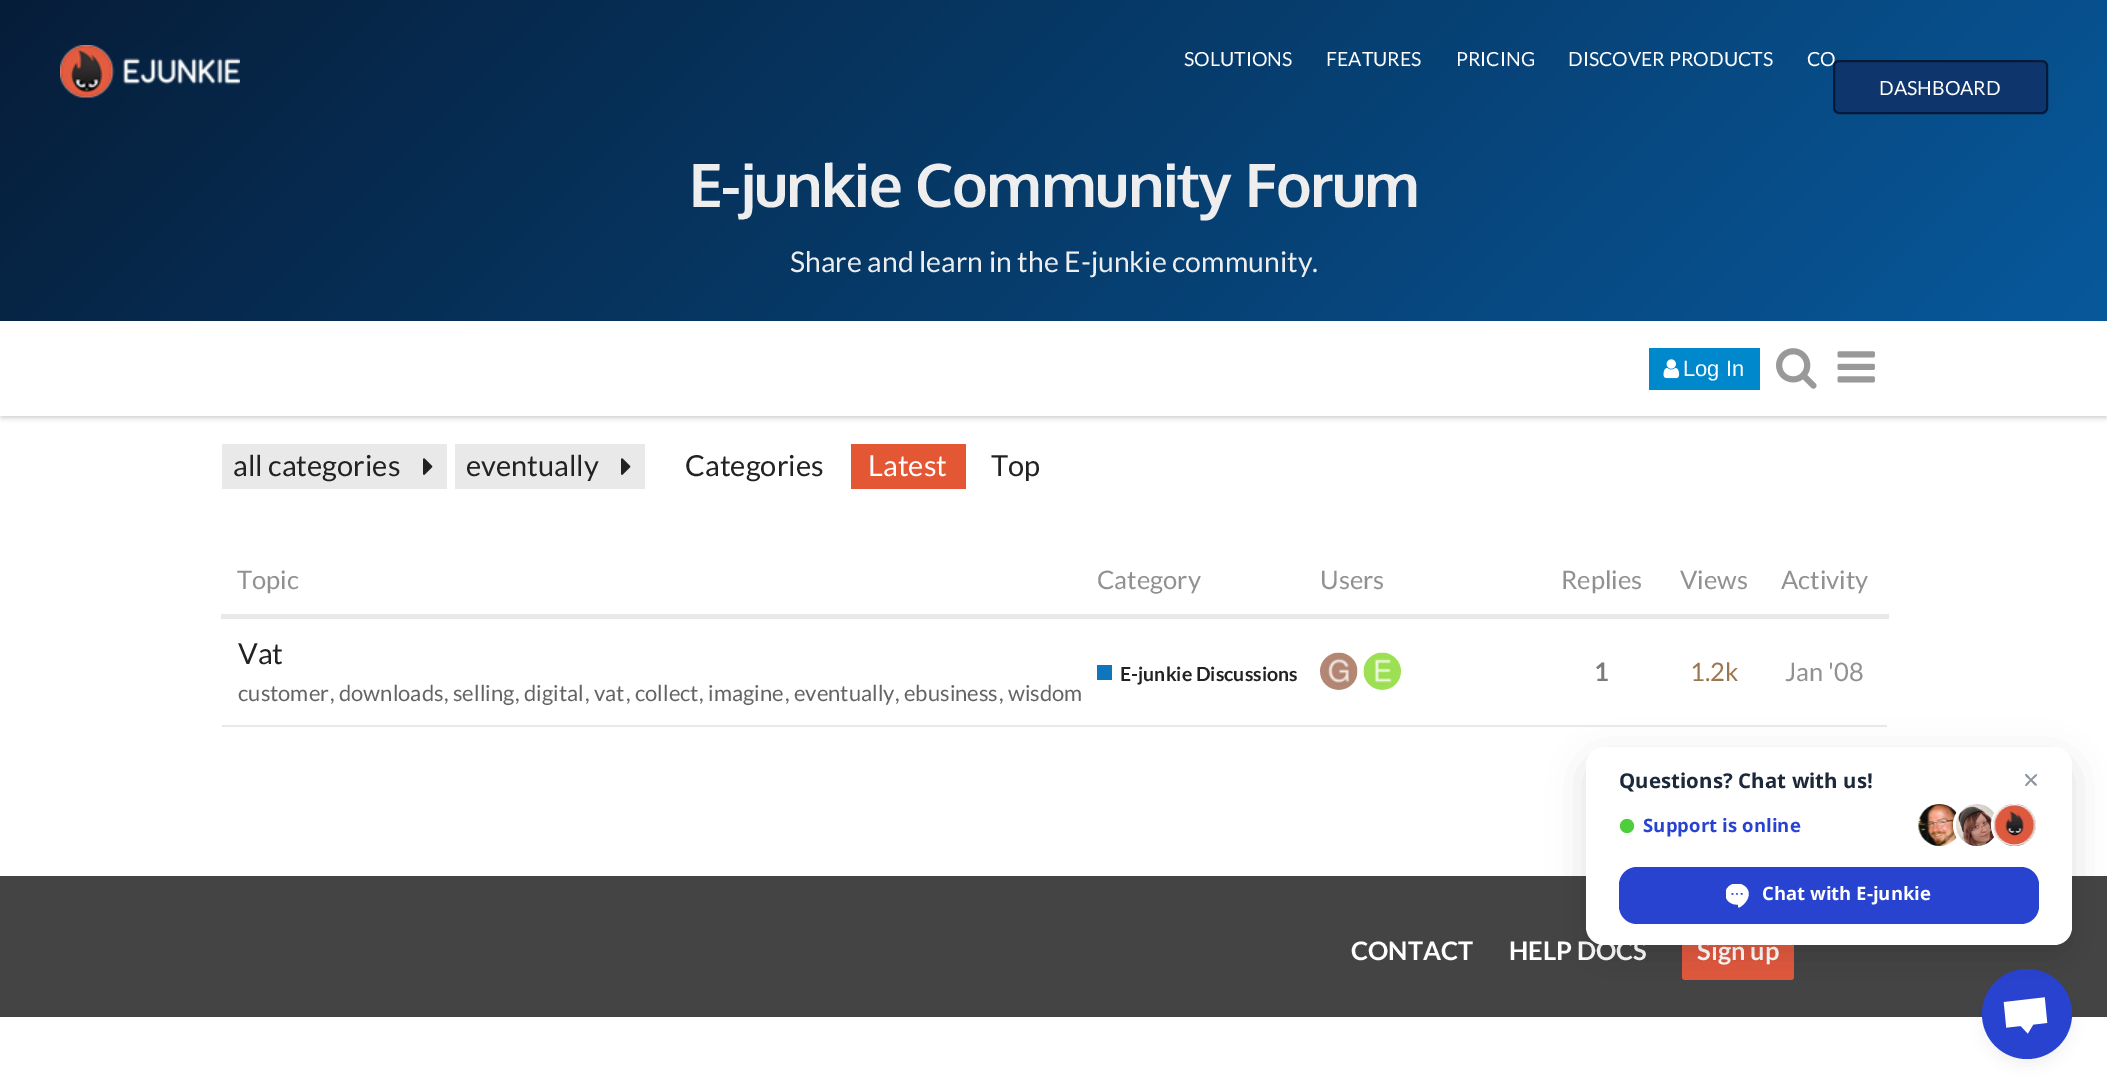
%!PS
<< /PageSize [2107 1089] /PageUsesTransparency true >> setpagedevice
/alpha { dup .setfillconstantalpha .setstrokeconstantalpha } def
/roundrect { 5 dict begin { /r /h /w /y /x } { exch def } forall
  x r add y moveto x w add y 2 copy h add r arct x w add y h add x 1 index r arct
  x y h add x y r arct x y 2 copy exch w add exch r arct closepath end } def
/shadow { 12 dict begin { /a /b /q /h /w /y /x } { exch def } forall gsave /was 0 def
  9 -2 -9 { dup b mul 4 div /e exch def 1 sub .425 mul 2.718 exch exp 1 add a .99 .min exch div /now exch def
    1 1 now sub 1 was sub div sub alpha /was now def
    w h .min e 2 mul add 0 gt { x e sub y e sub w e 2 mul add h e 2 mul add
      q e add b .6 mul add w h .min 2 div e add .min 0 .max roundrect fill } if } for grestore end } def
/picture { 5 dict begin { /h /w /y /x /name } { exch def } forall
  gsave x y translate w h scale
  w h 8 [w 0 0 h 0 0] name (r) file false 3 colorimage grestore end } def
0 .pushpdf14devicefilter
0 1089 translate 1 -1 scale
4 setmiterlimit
1 setgray
0 0 2107 1089 rectfill
gsave newpath 0 0 moveto 2107 0 lineto 2107 321 lineto 0 321 lineto closepath clip newpath
<< /ShadingType 2 /ColorSpace /DeviceRGB /Coords [447 -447 1661 768] /Extend [true true] /Function << /FunctionType 2 /Domain [0 1] /C0 [0.024 0.114 0.224] /C1 [0.027 0.349 0.608] /N 1 >> >> shfill grestore
(img1.rgb) 60 45 180 53 picture
/Lato-Regular [19.5 0 0 -19.5 0 0] selectfont
1184 66 moveto (SOLUTIONS) show
1326 66 moveto (FEATURES) show
1456 66 moveto (PRICING) show
1568 66 moveto (DISCOVER PRODUCTS) show
1807 66 moveto (CO) show
0.059 0.208 0.427 setrgbcolor
1834 61 213 52 5 roundrect gsave fill grestore
0.012 0.102 0.227 setrgbcolor
2 setlinewidth
stroke
1 setgray
1879 95 moveto (DASHBOARD) show
/Oxygen-Bold [60 0 0 -60 0 0] selectfont
0.933 setgray
689 207 moveto -1.5 0 (E-junkie Community Forum) ashow
/Lato-Regular [28.5 0 0 -28.5 0 0] selectfont
790 272 moveto (Share and learn in the E-junkie community.) show
0 setgray
2 326 2104 91 0 3 0.25 shadow
1 setgray
0 321 2107 95 rectfill
0 0.533 0.8 setrgbcolor
1649 348 111 42 rectfill
(img2.rgb) 1663 359 17 20 picture
/LiberationSans-Regular [22 0 0 -22 0 0] selectfont
1 setgray
1683 376 moveto (Log In) show
(img3.rgb) 1776 348 41 41 picture
(img4.rgb) 1837 351 38 32 picture
0.914 setgray
222 444 225 45 rectfill
/Lato-Regular [29 0 0 -29 0 0] selectfont
0.133 setgray
233 476 moveto (all categories) show
(img5.rgb) 423 458 10 17 picture
0.914 setgray
455 444 190 45 rectfill
0.133 setgray
466 476 moveto (eventually) show
(img5.rgb) 621 458 10 17 picture
685 476 moveto (Categories) show
0.894 0.341 0.208 setrgbcolor
851 444 115 45 rectfill
1 setgray
868 476 moveto (Latest) show
0.133 setgray
991 476 moveto (Top) show
/Lato-Regular [25.5 0 0 -25.5 0 0] selectfont
0.569 setgray
237 589 moveto (Topic) show
1097 589 moveto (Category) show
1320 589 moveto (Users) show
1561 589 moveto (Replies) show
1680 589 moveto (Views) show
1781 589 moveto (Activity) show
0.914 setgray
222 725 1665 2 rectfill
221 614 1668 5 rectfill
/Lato-Regular [29 0 0 -29 0 0] selectfont
0.133 setgray
238 664 moveto (Vat) show
/Lato-Regular [22 0 0 -22 0 0] selectfont
0.392 setgray
238 701 moveto (customer) show
330 701 moveto (, downloads) show
444 701 moveto (, selling) show
515 701 moveto (, digital) show
585 701 moveto (, vat) show
626 701 moveto (, collect) show
699 701 moveto (, imagine) show
785 701 moveto (, eventually) show
895 701 moveto (, ebusiness) show
999 701 moveto (, wisdom) show
0.055 0.463 0.741 setrgbcolor
1097 665 15 15 rectfill
/Lato-Bold [19.5 0 0 -19.5 0 0] selectfont
0.133 setgray
1120 681 moveto (E-junkie Discussions) show
(img6.rgb) 1320 652 38 38 picture
(img7.rgb) 1363 652 38 38 picture
/Lato-Bold [25.5 0 0 -25.5 0 0] selectfont
0.478 setgray
1594 681 moveto (1) show
/Lato-Regular [25.5 0 0 -25.5 0 0] selectfont
0.608 0.463 0.31 setrgbcolor
1690 681 moveto (1.2k) show
0.569 setgray
1785 681 moveto (Jan '08) show
0.267 setgray
0 876 2107 141 rectfill
/Lato-Bold [25.5 0 0 -25.5 0 0] selectfont
1 setgray
1351 960 moveto (CONTACT) show
1509 960 moveto (HELP DOCS) show
0.886 0.345 0.243 setrgbcolor
1682 921 112 59 3 roundrect fill
1 setgray
1697 960 moveto (Sign up) show
0 setgray
1982 975 90 90 45 7.5 0.05 shadow
0.161 0.263 0.82 setrgbcolor
newpath 2027 1014 45 0 360 arc closepath fill
0 setgray
1586 759 486 198 18 18 0.12 shadow
1 setgray
1586 747 486 198 18 roundrect fill
/NotoSans-Bold [20.4 0 0 -20.4 0 0] selectfont
0.11 0.161 0.231 setrgbcolor
1619 788 moveto 0.1 0 (Questions? Chat with us!) ashow
0.306 0.808 0.239 setrgbcolor
newpath 1627 826 7 0 360 arc closepath fill
/NotoSans-Bold [18.5 0 0 -18.5 0 0] selectfont
0.161 0.263 0.82 setrgbcolor
1643 832 moveto 0.1 0 (Support is online) ashow
(img8.rgb) 1918 804 39 42 picture
1 setgray
newpath 1977 825 22.5 0 360 arc closepath gsave fill grestore
3 setlinewidth
stroke
(img9.rgb) 1956 804 39 42 picture
newpath 2015 825 22.5 0 360 arc closepath gsave fill grestore
stroke
(img10.rgb) 1993 804 43 42 picture
0.553 0.58 0.616 setrgbcolor
newpath 2026 774 moveto 2025 774.5 lineto 2025 776 2029 779 2030 780 curveto 2029 781 2024 785 2025.5 786 curveto 2026.5 786.5 2030 782 2031 781 curveto 2032 782 2035.5 787 2036.5 785.5 curveto 2038 784.5 2033 781 2032 780 curveto 2033 779 2037.5 775.5 2037 774.5 curveto 2036 773 2032 778 2031 779 curveto 2030 778 2027 774 2026 774 curveto closepath fill
0.161 0.263 0.82 setrgbcolor
1619 867 420 57 18 roundrect fill
1 setgray
newpath 1726 890.5 moveto 1727 887.5 1730 884.5 1733.5 884 curveto 1740.5 884 lineto 1742 884.5 1744 885.5 1745 886.5 curveto 1750 890.5 1749.5 896.5 1746 901.5 curveto 1744.5 903.5 1741.5 906.5 1739 907.5 curveto 1738.5 907.5 1738.5 907.5 1738 907 curveto 1738 904.5 lineto 1732.5 905 1727.5 902 1726 897.5 curveto closepath 1742.5 893 moveto 1743 893 1743 895 1742.5 895 curveto 1739 895 1740.5 893 1741 893 curveto closepath 1737.5 893 moveto 1738.5 893 1738.5 895 1737.5 895 curveto 1734.5 895 1736 893 1736.5 893 curveto closepath 1733 893 moveto 1734 893 1734 895 1733 895 curveto 1730 895 1731 893 1732 893 curveto closepath eofill
1762 900 moveto (Chat with E-junkie) show
(img11.rgb) 2003 997 45 37 picture
.poppdf14devicefilter showpage
